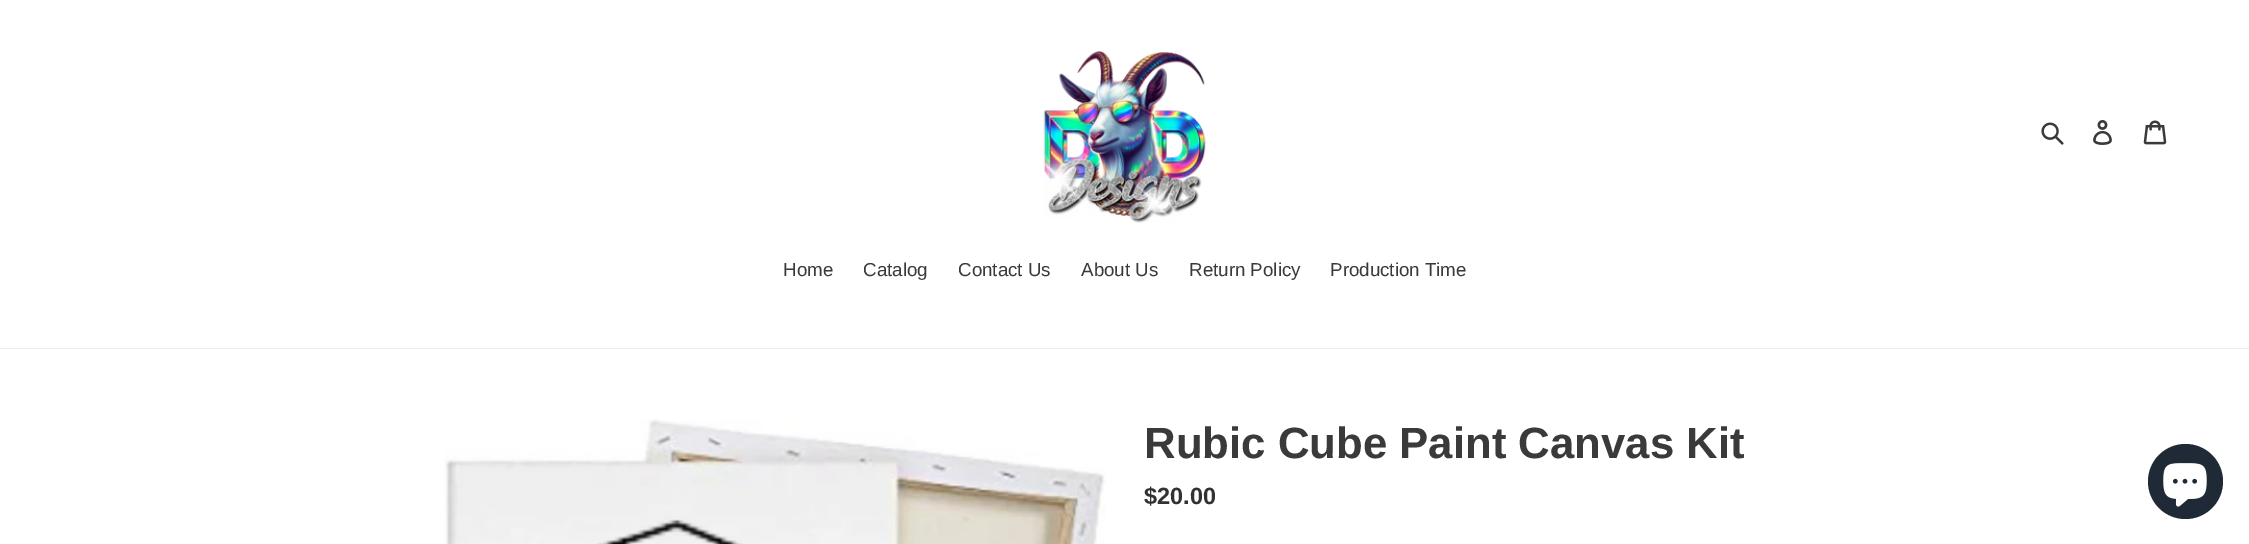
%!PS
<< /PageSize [2249 544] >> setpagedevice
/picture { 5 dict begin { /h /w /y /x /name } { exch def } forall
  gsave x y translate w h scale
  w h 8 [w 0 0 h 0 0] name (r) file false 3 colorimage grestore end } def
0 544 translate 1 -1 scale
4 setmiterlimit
1 setgray
0 0 2249 544 rectfill
(img1.rgb) 1043 51 163 172 picture
(img2.rgb) 2041 122 23 23 picture
(img3.rgb) 2093 120 19 25 picture
(img4.rgb) 2143 120 24 25 picture
0.922 setgray
0 348 2249 1 rectfill
/LiberationSans-Regular [18.75 0 0 -18.75 0 0] selectfont
0.227 setgray
783 276 moveto (Home) show
863 276 moveto (Catalog) show
958 276 moveto (Contact Us) show
1081 276 moveto (About Us) show
1189 276 moveto (Return Policy) show
1330 276 moveto (Production Time) show
(img5.rgb) 444 419 662 125 picture
/LiberationSans-Bold [43.75 0 0 -43.75 0 0] selectfont
1144 458 moveto (Rubic Cube Paint Canvas Kit) show
/LiberationSans-Bold [23.5 0 0 -23.5 0 0] selectfont
0.2 0.196 0.196 setrgbcolor
1144 504 moveto ($20.00) show
0.125 0.165 0.212 setrgbcolor
newpath 2185.5 481.5 37.5 0 360 arc closepath fill
(img6.rgb) 2163 463 44 44 picture
showpage
